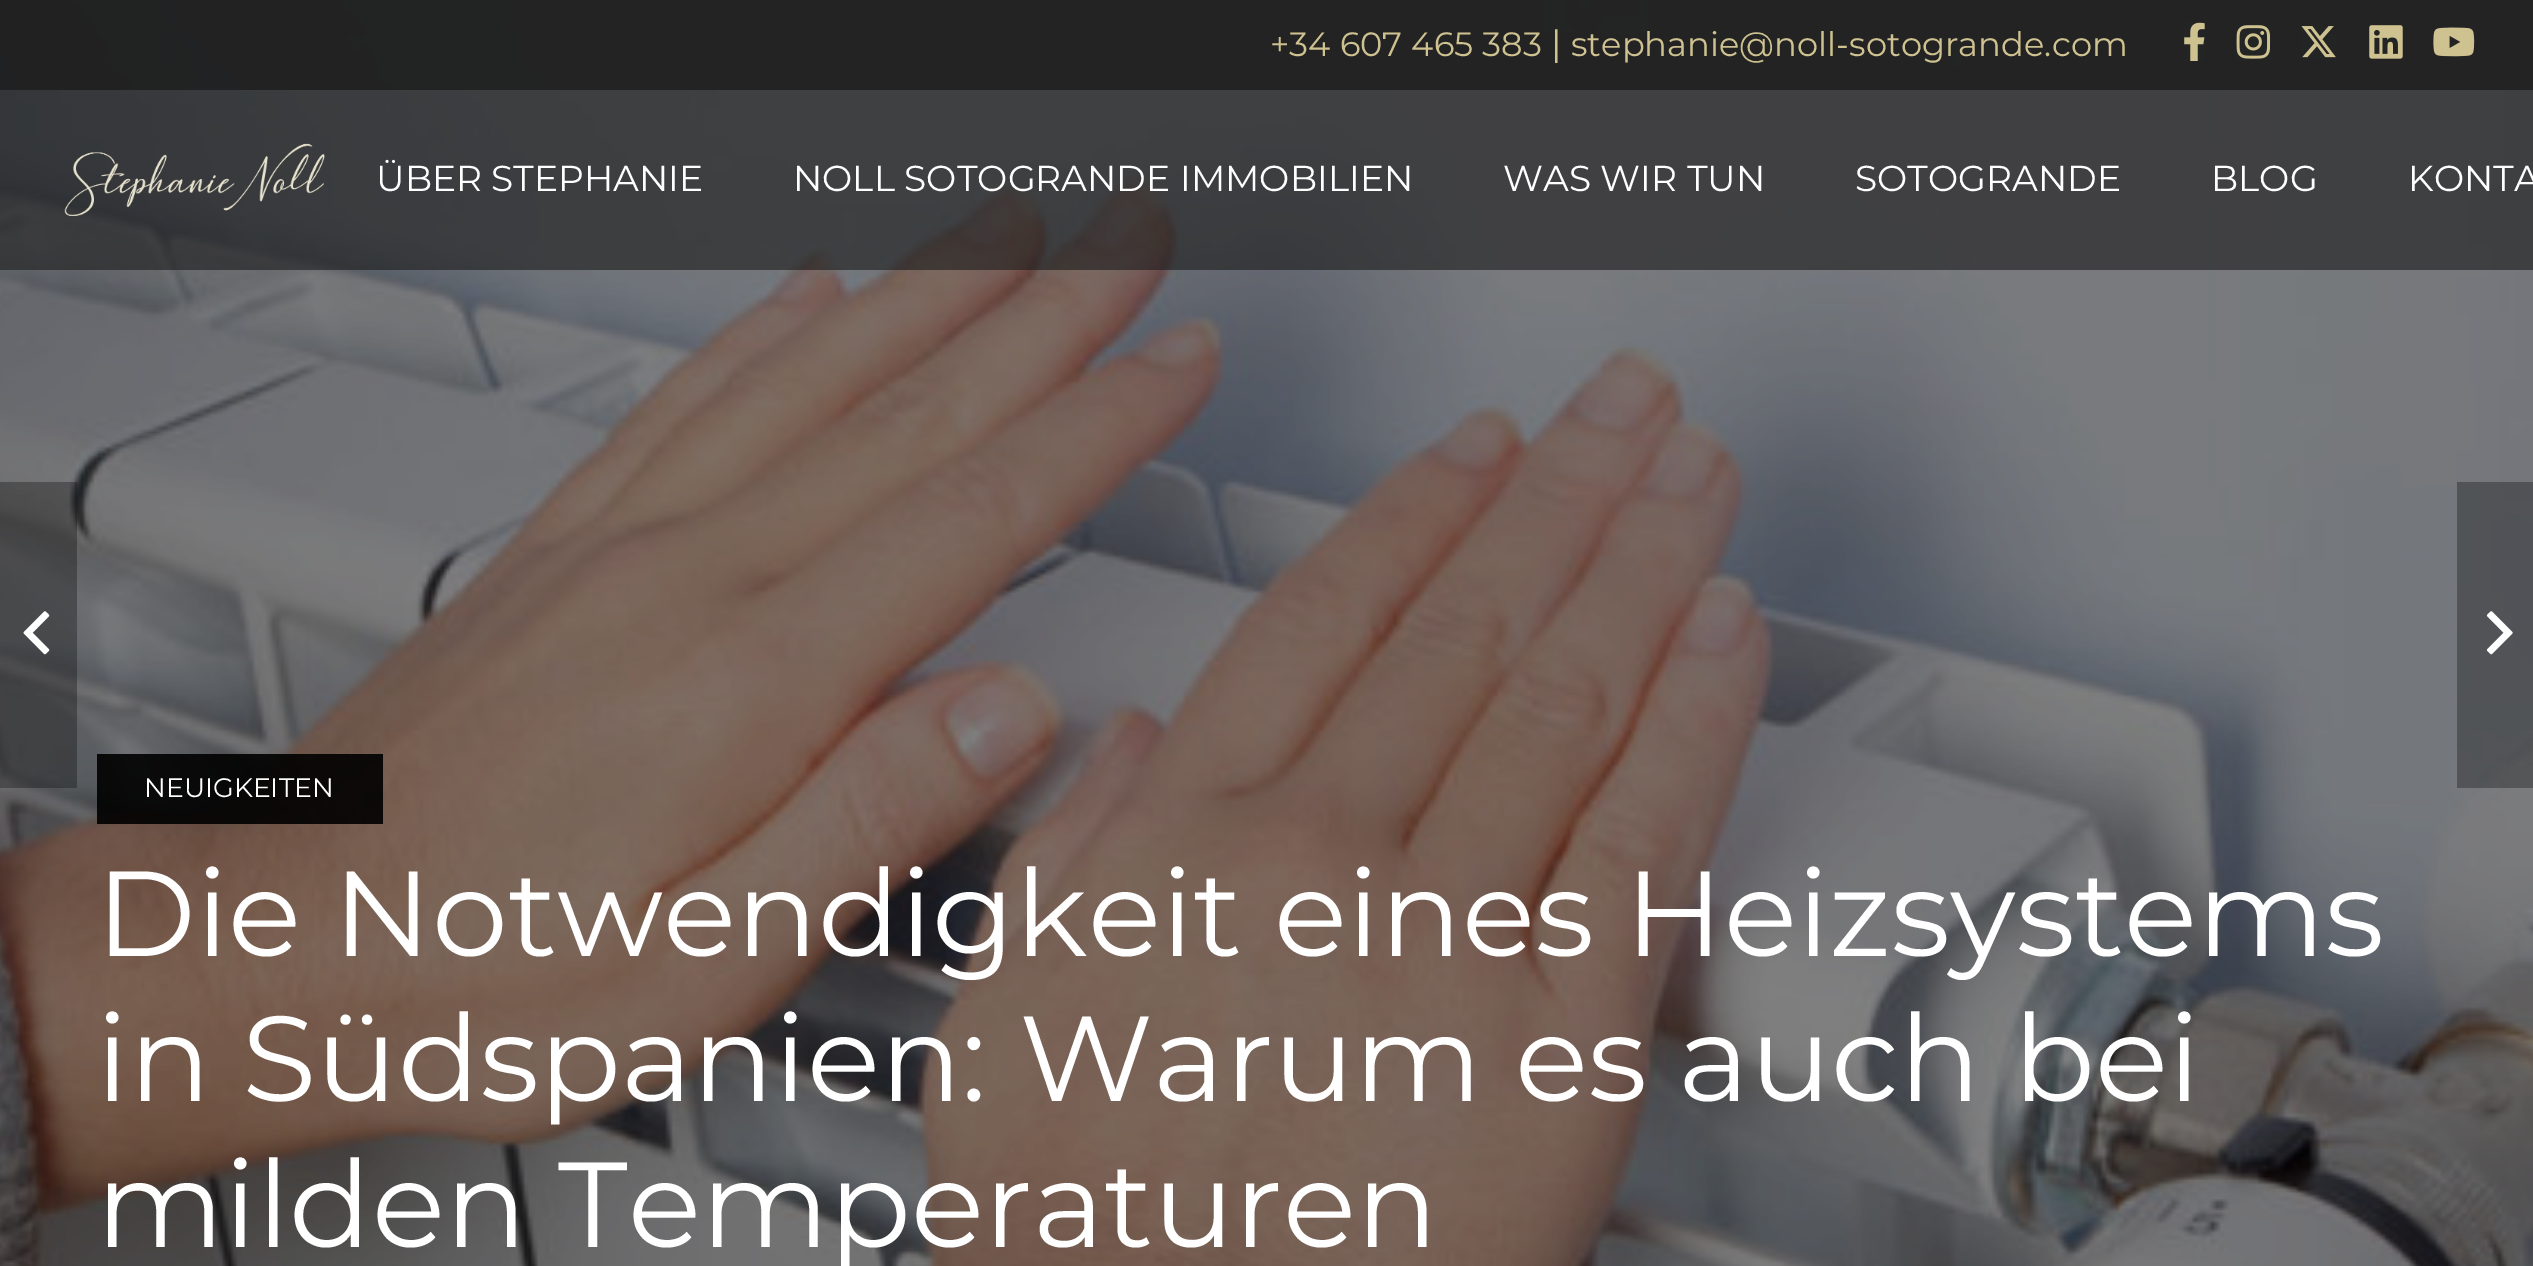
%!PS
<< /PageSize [2533 1266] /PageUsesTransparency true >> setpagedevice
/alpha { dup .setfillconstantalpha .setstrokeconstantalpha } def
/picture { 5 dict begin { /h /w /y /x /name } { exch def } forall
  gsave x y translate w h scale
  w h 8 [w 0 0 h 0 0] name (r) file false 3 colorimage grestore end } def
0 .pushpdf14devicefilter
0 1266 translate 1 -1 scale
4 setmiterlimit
1 setgray
0 0 2533 1266 rectfill
(img9.rgb) 0 0 2533 1266 picture
0.9 alpha
0.102 setgray
0 0 2533 90 rectfill
/Montserrat-Regular [33.75 0 0 -33.75 0 0] selectfont
1 alpha
0.812 0.761 0.569 setrgbcolor
1270 56 moveto (+34 607 465 383) show
/Montserrat-Regular [36 0 0 -36 0 0] selectfont
1551 56 moveto (|) show
/Montserrat-Regular [33.75 0 0 -33.75 0 0] selectfont
1571 56 moveto (stephanie@noll-sotogrande.com) show
(img1.rgb) 2184 22 21 39 picture
(img2.rgb) 2236 25 35 34 picture
(img3.rgb) 2301 26 35 32 picture
(img4.rgb) 2369 25 34 34 picture
(img5.rgb) 2433 27 42 30 picture
0.6 alpha
0.102 setgray
0 90 2533 180 rectfill
1 alpha
(img6.rgb) 64 143 261 73 picture
/Montserrat-Regular [36 0 0 -36 0 0] selectfont
1 setgray
376 191 moveto (ÜBER STEPHANIE) show
793 191 moveto (NOLL SOTOGRANDE IMMOBILIEN) show
1503 191 moveto (WAS WIR TUN) show
1855 191 moveto (SOTOGRANDE) show
2211 191 moveto (BLOG) show
2408 191 moveto (KONTA) show
0.3 alpha
0 setgray
0 482 77 306 rectfill
1 alpha
(img7.rgb) 23 611 27 44 picture
0.3 alpha
2457 482 76 306 rectfill
1 alpha
(img8.rgb) 2486 611 27 44 picture
0.9 alpha
97 754 286 70 rectfill
/Montserrat-Regular [26.75 0 0 -26.75 0 0] selectfont
1 alpha
1 setgray
144 797 moveto (NEUIGKEITEN) show
/Montserrat-Regular [121 0 0 -121 0 0] selectfont
96 956 moveto (Die Notwendigkeit eines Heizsystems) show
96 1101 moveto (in Südspanien: Warum es auch bei) show
96 1247 moveto (milden Temperaturen) show
.poppdf14devicefilter showpage
